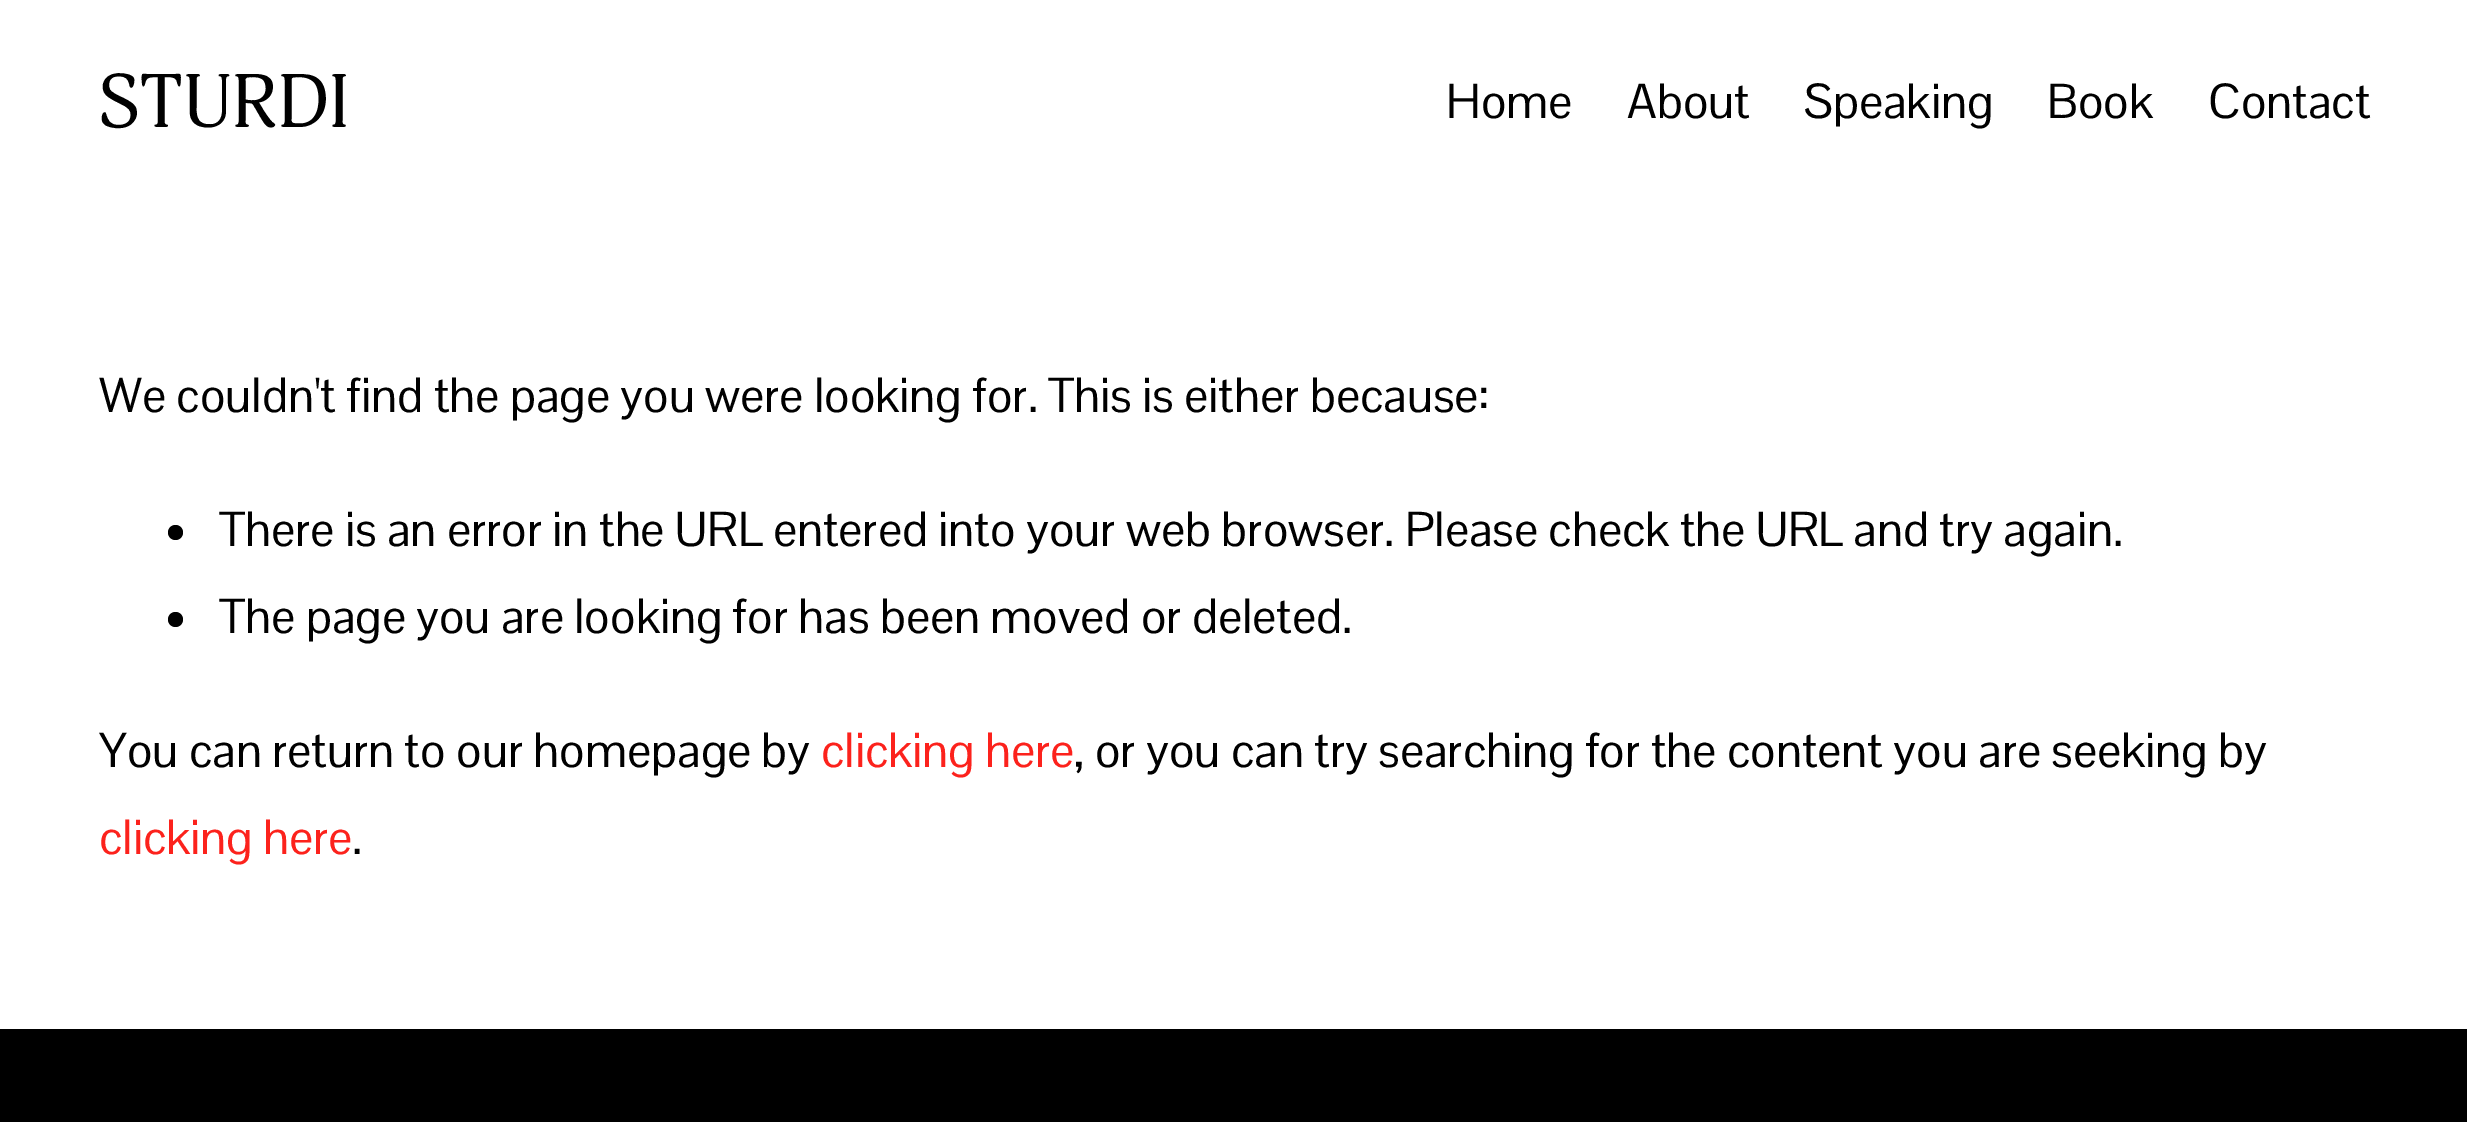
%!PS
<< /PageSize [2467 1122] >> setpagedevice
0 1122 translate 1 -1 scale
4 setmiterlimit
1 setgray
0 0 2467 1122 rectfill
/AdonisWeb-Regular [74.5 0 0 -74.5 0 0] selectfont
0 setgray
99 127 moveto (STURDI) show
/PontanoSans-Regular [48 0 0 -48 0 0] selectfont
1446 118 moveto (Home) show
1627 118 moveto (About) show
1804 118 moveto (Speaking) show
2047 118 moveto (Book) show
2208 118 moveto (Contact) show
99 412 moveto (We couldn't find the page you were looking for. This is either because:) show
newpath 175.5 532.5 7.5 0 360 arc closepath fill
219 546 moveto (There is an error in the URL entered into your web browser. Please check the URL and try again.) show
newpath 175.5 619.5 7.5 0 360 arc closepath fill
219 633 moveto (The page you are looking for has been moved or deleted.) show
99 767 moveto (You can return to our homepage by) show
0.988 0.133 0.11 setrgbcolor
821 767 moveto (clicking here) show
0 setgray
1074 767 moveto (, or you can try searching for the content you are seeking by) show
0.988 0.133 0.11 setrgbcolor
99 854 moveto (clicking here) show
0 setgray
352 854 moveto (.) show
0 1029 2467 93 rectfill
showpage
